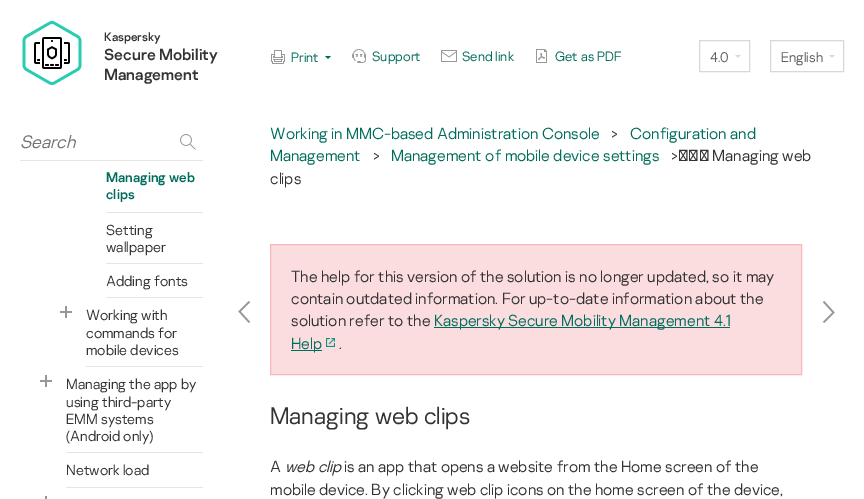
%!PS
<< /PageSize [864 499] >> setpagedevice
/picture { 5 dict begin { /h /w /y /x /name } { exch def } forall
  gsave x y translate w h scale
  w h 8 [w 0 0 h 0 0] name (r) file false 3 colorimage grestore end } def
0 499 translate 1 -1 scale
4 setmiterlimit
1 setgray
0 0 864 499 rectfill
(img1.rgb) 22 21 60 64 picture
/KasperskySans-Regular [12 0 0 -12 0 0] selectfont
0.2 setgray
104 41 moveto (Kaspersky) show
/KasperskySans-Regular [16 0 0 -16 0 0] selectfont
104 60 moveto (Secure Mobility) show
104 80 moveto (Management) show
(img2.rgb) 271 50 14 14 picture
/KasperskySans-Light [13.5 0 0 -13.5 0 0] selectfont
0 0.427 0.361 setrgbcolor
291 62 moveto (Print) show
newpath 325 56 moveto 331 56 lineto 328 59 lineto closepath fill
(img3.rgb) 352 49 14 14 picture
372 61 moveto (Support) show
(img4.rgb) 441 50 16 12 picture
462 61 moveto (Send link) show
(img5.rgb) 536 49 11 14 picture
555 61 moveto (Get as PDF) show
0.847 setgray
699.5 40.5 50 31 rectstroke
/KasperskySans-Light [14 0 0 -14 0 0] selectfont
0.361 0.373 0.38 setrgbcolor
710 62 moveto (4.0) show
(img6.rgb) 735 55 6 3 picture
0.847 setgray
770.5 40.5 73 31 rectstroke
0.361 0.373 0.38 setrgbcolor
781 62 moveto (English) show
(img6.rgb) 829 55 6 3 picture
0.898 setgray
20 160 183 1 rectfill
/KasperskySans-LightItalic [18 0 0 -18 0 0] selectfont
0.459 setgray
20 148 moveto (Search) show
(img7.rgb) 180 134 16 16 picture
0.898 setgray
106 212 97 1 rectfill
/KasperskySans-Regular [13.75 0 0 -13.75 0 0] selectfont
0 0.427 0.361 setrgbcolor
106 182 moveto (Managing web) show
106 199 moveto (clips) show
0.898 setgray
106 263 97 1 rectfill
/KasperskySans-Light [14.5 0 0 -14.5 0 0] selectfont
0.2 setgray
106 235 moveto (Setting) show
106 252 moveto (wallpaper) show
0.898 setgray
106 297 97 1 rectfill
0.2 setgray
106 286 moveto (Adding fonts) show
(img8.rgb) 60 306 12 12 picture
0.898 setgray
86 366 117 1 rectfill
0.2 setgray
86 320 moveto (Working with) show
86 338 moveto (commands for) show
86 355 moveto (mobile devices) show
(img8.rgb) 40 375 12 12 picture
0.898 setgray
66 452 137 1 rectfill
0.2 setgray
66 389 moveto (Managing the app by) show
66 407 moveto (using third-party) show
66 424 moveto (EMM systems) show
66 441 moveto (\(Android only\)) show
0.898 setgray
66 487 137 1 rectfill
0.2 setgray
66 475 moveto (Network load) show
0.592 setgray
45 496 2 3 rectfill
(img9.rgb) 238 301 13 22 picture
/KasperskySans-Light [16 0 0 -16 0 0] selectfont
0 0.427 0.361 setrgbcolor
270 139 moveto (Working in MMC-based Administration Console) show
0.2 setgray
611 139 moveto (>) show
0 0.427 0.361 setrgbcolor
630 139 moveto (Configuration and) show
270 161 moveto (Management) show
0.2 setgray
373 161 moveto (>) show
0 0.427 0.361 setrgbcolor
391 161 moveto (Management of mobile device settings) show
0.2 setgray
671 161 moveto (>  Managing web) show
270 184 moveto (clips) show
0.988 0.867 0.875 setrgbcolor
newpath 270.5 244.5 moveto 801.5 244.5 lineto 801.5 374.5 lineto 270.5 374.5 lineto closepath gsave fill grestore
0.976 0.718 0.737 setrgbcolor
stroke
0.2 setgray
291 282 moveto (The help for this version of the solution is no longer updated, so it may) show
291 304 moveto (contain outdated information. For up-to-date information about the) show
291 326 moveto (solution refer to the) show
0 0.427 0.361 setrgbcolor
434 327 296 1 rectfill
434 326 moveto (Kaspersky Secure Mobility Management 4.1) show
291 350 31 1 rectfill
291 349 moveto (Help) show
(img10.rgb) 326 338 9 9 picture
0.2 setgray
339 349 moveto (.) show
/KasperskySans-Light [24 0 0 -24 0 0] selectfont
270 424 moveto (Managing web clips) show
/KasperskySans-Light [16 0 0 -16 0 0] selectfont
270 472 moveto (A) show
/KasperskySans-LightItalic [16 0 0 -16 0 0] selectfont
285 472 moveto (web clip) show
/KasperskySans-Light [16 0 0 -16 0 0] selectfont
344 472 moveto (is an app that opens a website from the Home screen of the) show
270 495 moveto (mobile device. By clicking web clip icons on the home screen of the device,) show
(img11.rgb) 822 301 13 22 picture
showpage
